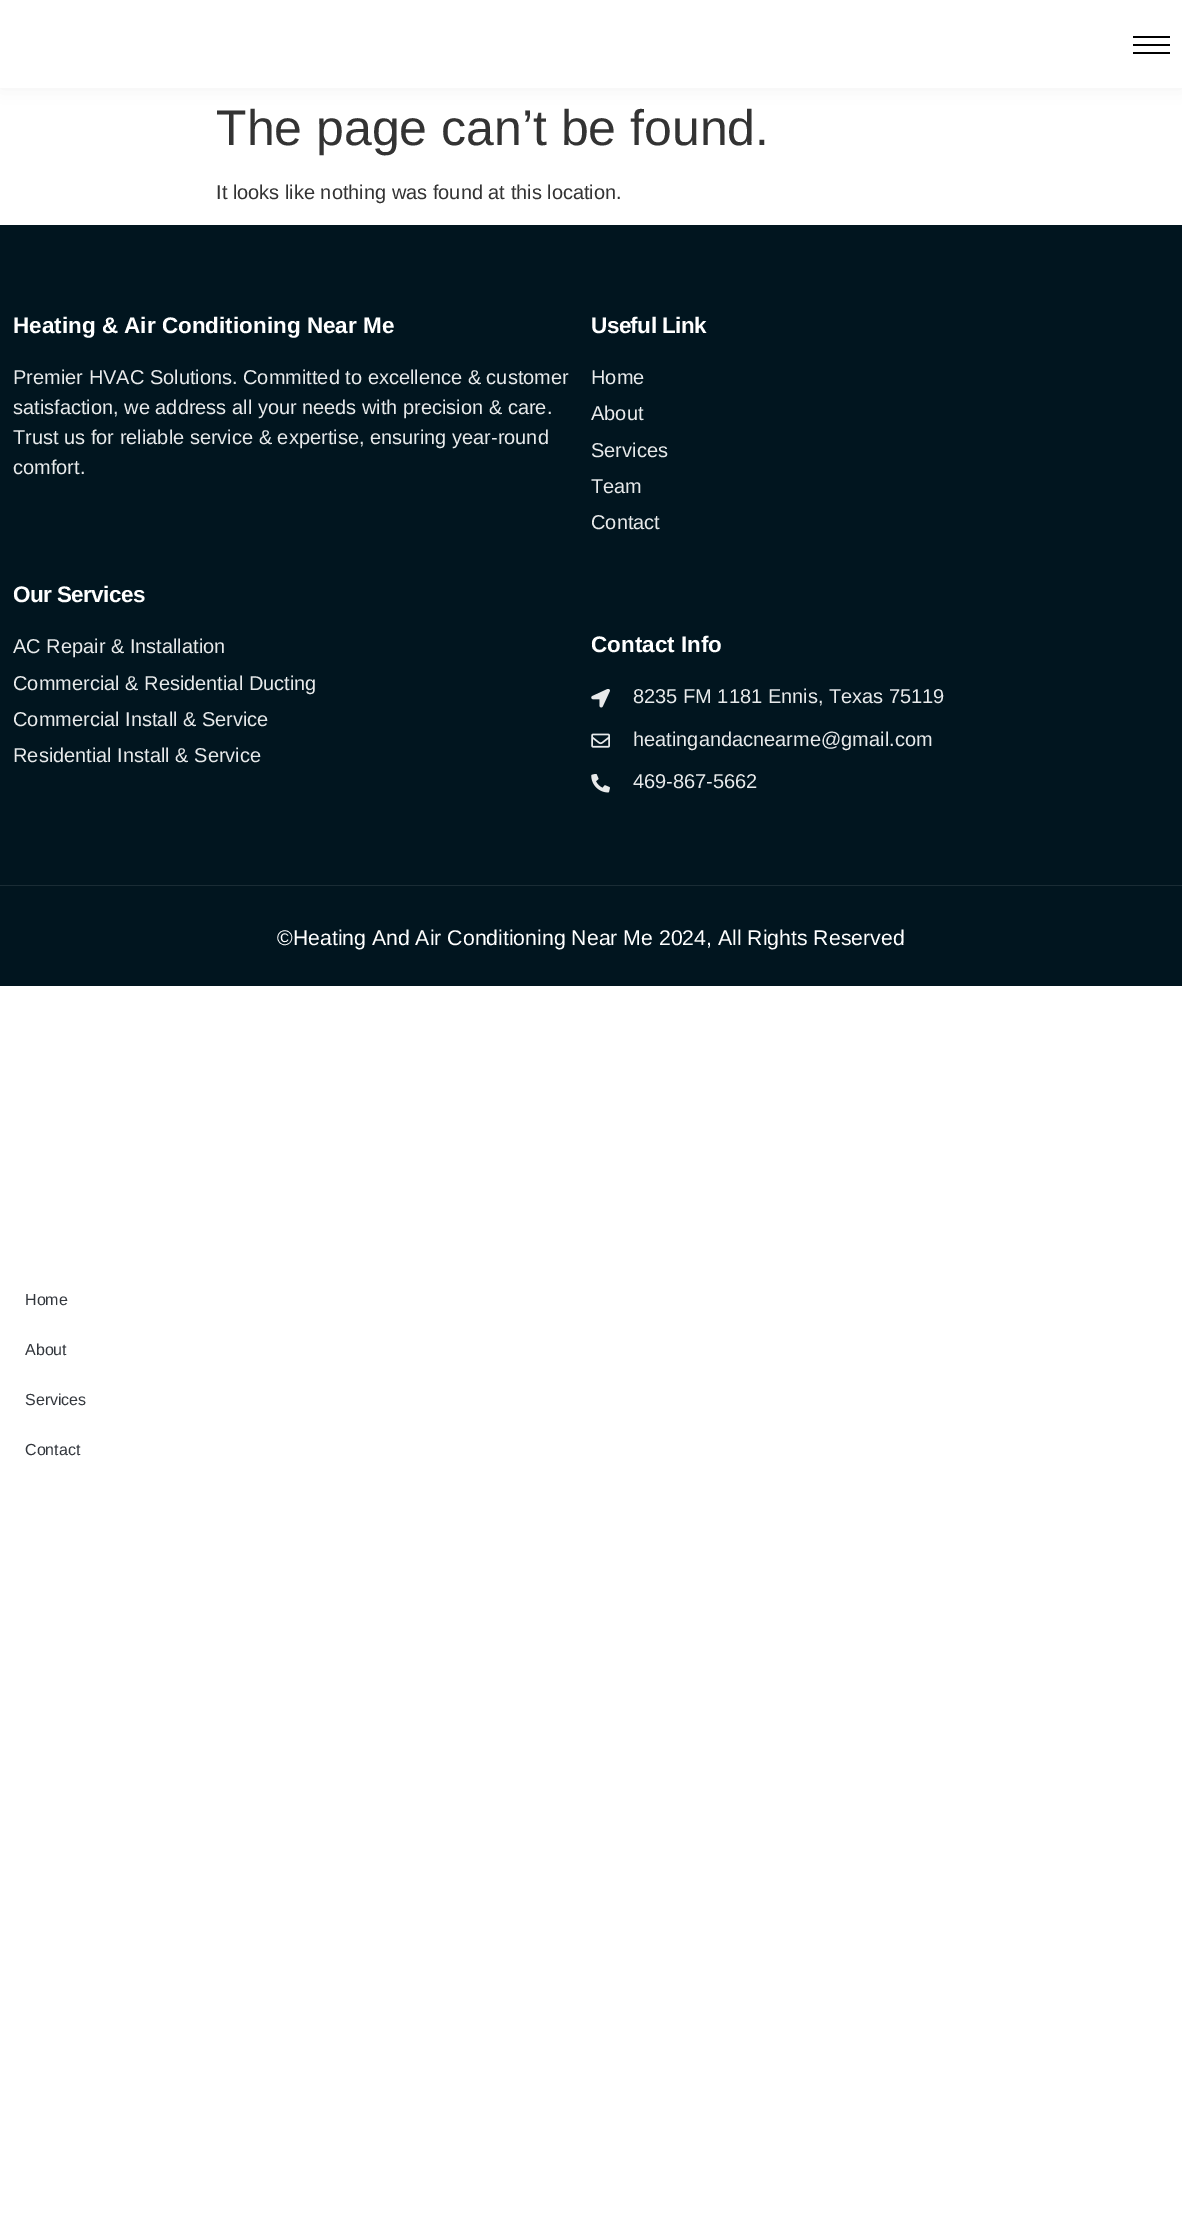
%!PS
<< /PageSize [1182 2239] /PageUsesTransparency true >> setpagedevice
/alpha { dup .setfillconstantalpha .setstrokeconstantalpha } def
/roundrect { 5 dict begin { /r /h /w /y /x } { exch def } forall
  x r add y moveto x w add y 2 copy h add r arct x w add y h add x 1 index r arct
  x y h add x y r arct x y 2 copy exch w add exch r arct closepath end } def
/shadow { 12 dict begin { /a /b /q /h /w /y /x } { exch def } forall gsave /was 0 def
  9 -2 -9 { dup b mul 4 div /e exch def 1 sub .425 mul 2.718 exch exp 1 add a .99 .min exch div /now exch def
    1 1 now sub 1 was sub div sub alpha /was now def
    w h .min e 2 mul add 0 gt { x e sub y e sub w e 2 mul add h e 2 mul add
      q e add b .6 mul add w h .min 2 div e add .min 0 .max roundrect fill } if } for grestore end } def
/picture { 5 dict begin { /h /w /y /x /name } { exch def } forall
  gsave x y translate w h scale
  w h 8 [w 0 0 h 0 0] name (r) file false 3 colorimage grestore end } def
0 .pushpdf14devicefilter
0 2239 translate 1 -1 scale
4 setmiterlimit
1 setgray
0 0 1182 2239 rectfill
0 setgray
0 0 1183 88 0 9.5 0.06 shadow
1 setgray
0 0 1182 88 rectfill
0 setgray
1133 52 37 2 rectfill
1133 44 37 2 rectfill
1133 36 37 2 rectfill
/LiberationSans-Regular [50 0 0 -50 0 0] selectfont
0.2 setgray
216 145 moveto (The page can’t be found.) show
/LiberationSans-Regular [20 0 0 -20 0 0] selectfont
216 199 moveto (It looks like nothing was found at this location.) show
0.004 0.082 0.122 setrgbcolor
0 225 1182 660 rectfill
/LiberationSans-Bold [22.5 0 0 -22.5 0 0] selectfont
1 setgray
13 333 moveto (Heating & Air Conditioning Near Me) show
/LiberationSans-Regular [20 0 0 -20 0 0] selectfont
0.91 0.918 0.922 setrgbcolor
13 384 moveto (Premier HVAC Solutions. Committed to excellence & customer) show
13 414 moveto (satisfaction, we address all your needs with precision & care.) show
13 444 moveto (Trust us for reliable service & expertise, ensuring year-round) show
13 474 moveto (comfort.) show
/LiberationSans-Bold [22.5 0 0 -22.5 0 0] selectfont
1 setgray
591 333 moveto -0.6 0 (Useful Link) ashow
/LiberationSans-Regular [20 0 0 -20 0 0] selectfont
0.91 0.918 0.922 setrgbcolor
591 384 moveto (Home) show
591 420 moveto (About) show
591 457 moveto (Services) show
591 493 moveto (Team) show
591 529 moveto (Contact) show
/LiberationSans-Bold [22.5 0 0 -22.5 0 0] selectfont
1 setgray
13 602 moveto -0.6 0 (Our Services) ashow
/LiberationSans-Regular [20 0 0 -20 0 0] selectfont
0.91 0.918 0.922 setrgbcolor
13 653 moveto (AC Repair & Installation) show
13 690 moveto (Commercial & Residential Ducting) show
13 726 moveto (Commercial Install & Service) show
13 762 moveto (Residential Install & Service) show
/LiberationSans-Bold [22.5 0 0 -22.5 0 0] selectfont
1 setgray
591 652 moveto (Contact Info) show
(img1.rgb) 591 689 19 19 picture
/LiberationSans-Regular [20 0 0 -20 0 0] selectfont
0.91 0.918 0.922 setrgbcolor
633 703 moveto (8235 FM 1181 Ennis, Texas 75119) show
(img2.rgb) 591 733 19 15 picture
633 746 moveto (heatingandacnearme@gmail.com) show
(img3.rgb) 591 774 19 19 picture
633 788 moveto (469-867-5662) show
0.004 0.082 0.122 setrgbcolor
0 886 1182 100 rectfill
0.102 0.173 0.208 setrgbcolor
0 885 1182 1 rectfill
/LiberationSans-Regular [21.25 0 0 -21.25 0 0] selectfont
1 setgray
277 945 moveto (©Heating And Air Conditioning Near Me 2024, All Rights Reserved) show
/LiberationSans-Regular [16 0 0 -16 0 0] selectfont
0.2 0.216 0.239 setrgbcolor
25 1305 moveto (Home) show
25 1355 moveto (About) show
25 1405 moveto (Services) show
25 1455 moveto (Contact) show
.poppdf14devicefilter showpage
